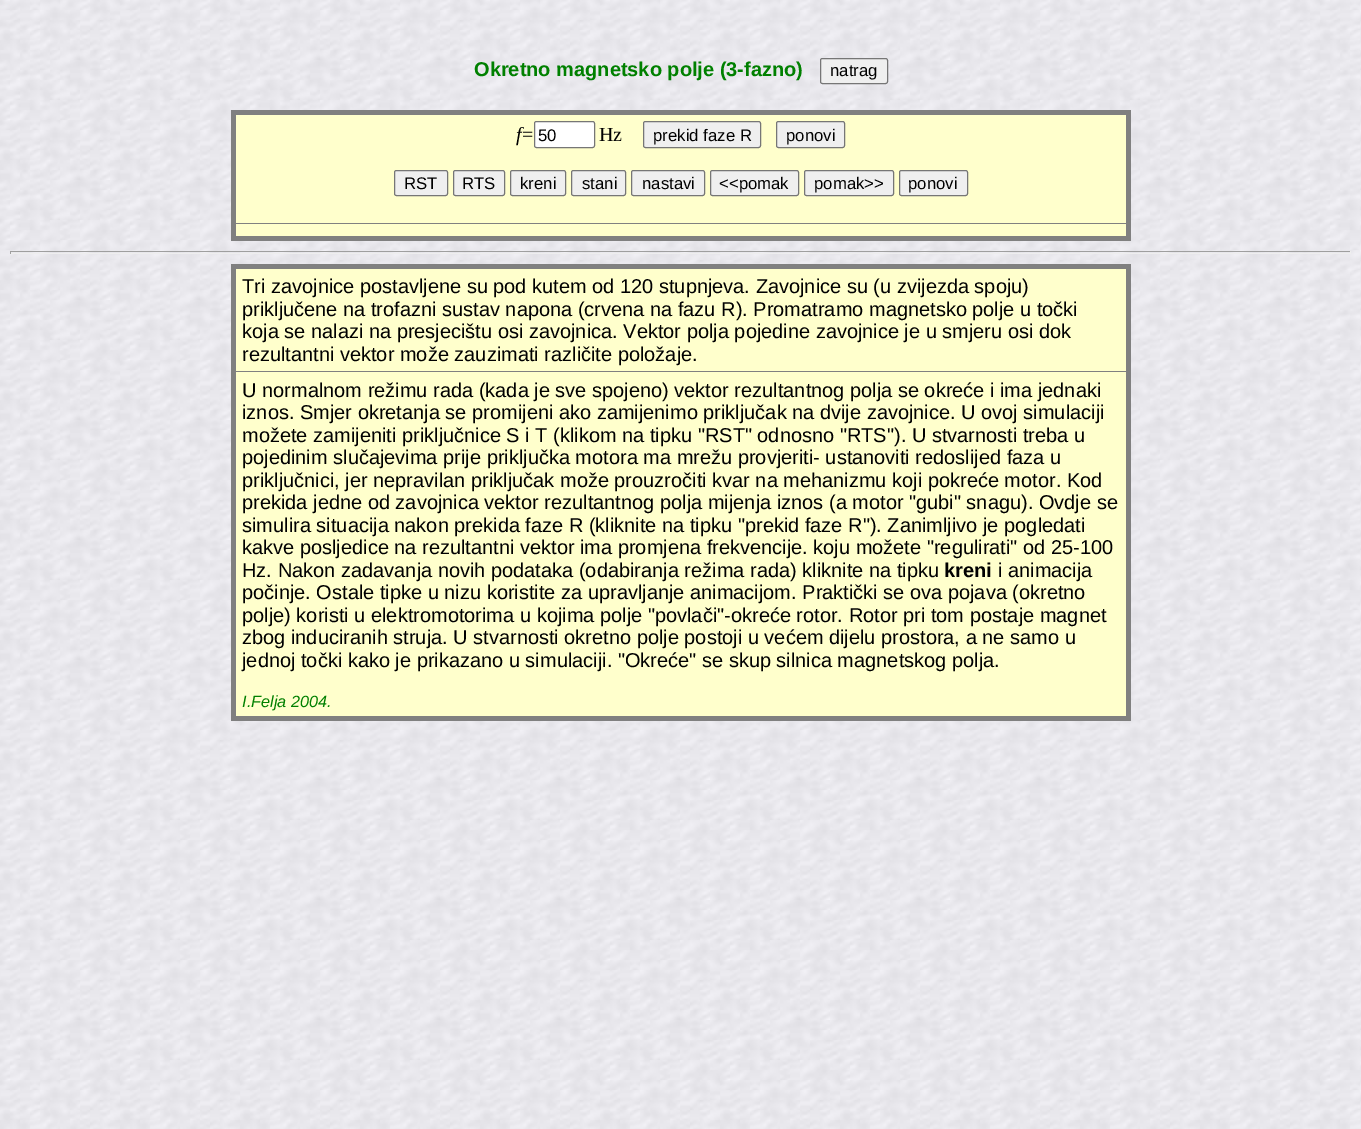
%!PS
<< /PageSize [1361 1129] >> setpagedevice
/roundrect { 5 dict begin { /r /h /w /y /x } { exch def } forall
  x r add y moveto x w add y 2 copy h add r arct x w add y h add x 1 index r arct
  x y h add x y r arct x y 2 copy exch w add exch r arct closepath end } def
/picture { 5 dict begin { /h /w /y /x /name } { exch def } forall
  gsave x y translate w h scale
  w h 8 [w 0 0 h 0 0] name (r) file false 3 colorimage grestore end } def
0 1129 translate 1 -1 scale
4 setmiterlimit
1 setgray
0 0 1361 1129 rectfill
(img1.rgb) 0 0 1361 1129 picture
/LiberationSans-Bold [20 0 0 -20 0 0] selectfont
0 0.502 0 setrgbcolor
474 76 moveto (Okretno magnetsko polje \(3-fazno\)) show
0.937 setgray
820.5 58.5 67 25 2 roundrect gsave fill grestore
0.463 setgray
stroke
/LiberationSans-Regular [16.75 0 0 -16.75 0 0] selectfont
0 setgray
830 76 moveto (natrag) show
1 1 0.8 setrgbcolor
236 115 890 121 rectfill
0.502 setgray
231 110 900 5 rectfill
233 223 896 1 rectfill
1126 110 5 131 rectfill
231 236 900 5 rectfill
231 110 5 131 rectfill
/LiberationSerif-Italic [20 0 0 -20 0 0] selectfont
0 setgray
516 141 moveto (f) show
/LiberationSerif-Regular [20 0 0 -20 0 0] selectfont
522 141 moveto (=) show
1 setgray
534.5 121.5 60 26 2 roundrect gsave fill grestore
0.463 setgray
stroke
/LiberationSans-Regular [16.75 0 0 -16.75 0 0] selectfont
0 setgray
538 141 moveto (50) show
/LiberationSerif-Regular [20 0 0 -20 0 0] selectfont
599 141 moveto (Hz) show
0.937 setgray
643.5 121.5 117 26 2 roundrect gsave fill grestore
0.463 setgray
stroke
/LiberationSans-Regular [16.75 0 0 -16.75 0 0] selectfont
0 setgray
653 141 moveto (prekid faze R) show
0.937 setgray
776.5 121.5 68 26 2 roundrect gsave fill grestore
0.463 setgray
stroke
0 setgray
786 141 moveto (ponovi) show
0.937 setgray
394.5 170.5 53 25 2 roundrect gsave fill grestore
0.463 setgray
stroke
0 setgray
404 189 moveto (RST) show
0.937 setgray
453.5 170.5 51 25 2 roundrect gsave fill grestore
0.463 setgray
stroke
0 setgray
462 189 moveto (RTS) show
0.937 setgray
510.5 170.5 55 25 2 roundrect gsave fill grestore
0.463 setgray
stroke
0 setgray
520 189 moveto (kreni) show
0.937 setgray
571.5 170.5 54 25 2 roundrect gsave fill grestore
0.463 setgray
stroke
0 setgray
582 189 moveto (stani) show
0.937 setgray
631.5 170.5 73 25 2 roundrect gsave fill grestore
0.463 setgray
stroke
0 setgray
642 189 moveto (nastavi) show
0.937 setgray
710.5 170.5 88 25 2 roundrect gsave fill grestore
0.463 setgray
stroke
0 setgray
719 189 moveto (<<pomak) show
0.937 setgray
804.5 170.5 89 25 2 roundrect gsave fill grestore
0.463 setgray
stroke
0 setgray
814 189 moveto (pomak>>) show
0.937 setgray
899.5 170.5 68 25 2 roundrect gsave fill grestore
0.463 setgray
stroke
0 setgray
908 189 moveto (ponovi) show
0.624 setgray
10 251 1341 1 rectfill
0.933 setgray
1350 251 1 3 rectfill
10 253 1341 1 rectfill
0.624 setgray
10 251 1 3 rectfill
1 1 0.8 setrgbcolor
236 269 890 447 rectfill
0.502 setgray
231 264 900 5 rectfill
233 371 896 1 rectfill
1126 264 5 457 rectfill
231 716 900 5 rectfill
231 264 5 457 rectfill
/LiberationSans-Regular [20 0 0 -20 0 0] selectfont
0 setgray
242 293 moveto (Tri zavojnice postavljene su pod kutem od 120 stupnjeva. Zavojnice su \(u zvijezda spoju\)) show
242 316 moveto (priključene na trofazni sustav napona \(crvena na fazu R\). Promatramo magnetsko polje u točki) show
242 338 moveto (koja se nalazi na presjecištu osi zavojnica. Vektor polja pojedine zavojnice je u smjeru osi dok) show
242 361 moveto (rezultantni vektor može zauzimati različite položaje.) show
242 397 moveto (U normalnom režimu rada \(kada je sve spojeno\) vektor rezultantnog polja se okreće i ima jednaki) show
242 419 moveto (iznos. Smjer okretanja se promijeni ako zamijenimo priključak na dvije zavojnice. U ovoj simulaciji) show
242 442 moveto (možete zamijeniti priključnice S i T \(klikom na tipku "RST" odnosno "RTS"\). U stvarnosti treba u) show
242 464 moveto (pojedinim slučajevima prije priključka motora ma mrežu provjeriti- ustanoviti redoslijed faza u) show
242 487 moveto (priključnici, jer nepravilan priključak može prouzročiti kvar na mehanizmu koji pokreće motor. Kod) show
242 509 moveto (prekida jedne od zavojnica vektor rezultantnog polja mijenja iznos \(a motor "gubi" snagu\). Ovdje se) show
242 532 moveto (simulira situacija nakon prekida faze R \(kliknite na tipku "prekid faze R"\). Zanimljivo je pogledati) show
242 554 moveto (kakve posljedice na rezultantni vektor ima promjena frekvencije. koju možete "regulirati" od 25-100) show
242 577 moveto (Hz. Nakon zadavanja novih podataka \(odabiranja režima rada\) kliknite na tipku) show
/LiberationSans-Bold [20 0 0 -20 0 0] selectfont
944 577 moveto (kreni) show
/LiberationSans-Regular [20 0 0 -20 0 0] selectfont
998 577 moveto (i animacija) show
242 599 moveto (počinje. Ostale tipke u nizu koristite za upravljanje animacijom. Praktički se ova pojava \(okretno) show
242 622 moveto (polje\) koristi u elektromotorima u kojima polje "povlači"-okreće rotor. Rotor pri tom postaje magnet) show
242 644 moveto (zbog induciranih struja. U stvarnosti okretno polje postoji u većem dijelu prostora, a ne samo u) show
242 667 moveto (jednoj točki kako je prikazano u simulaciji. "Okreće" se skup silnica magnetskog polja.) show
/LiberationSans-Italic [16.25 0 0 -16.25 0 0] selectfont
0 0.502 0 setrgbcolor
242 707 moveto (I.Felja 2004.) show
showpage
